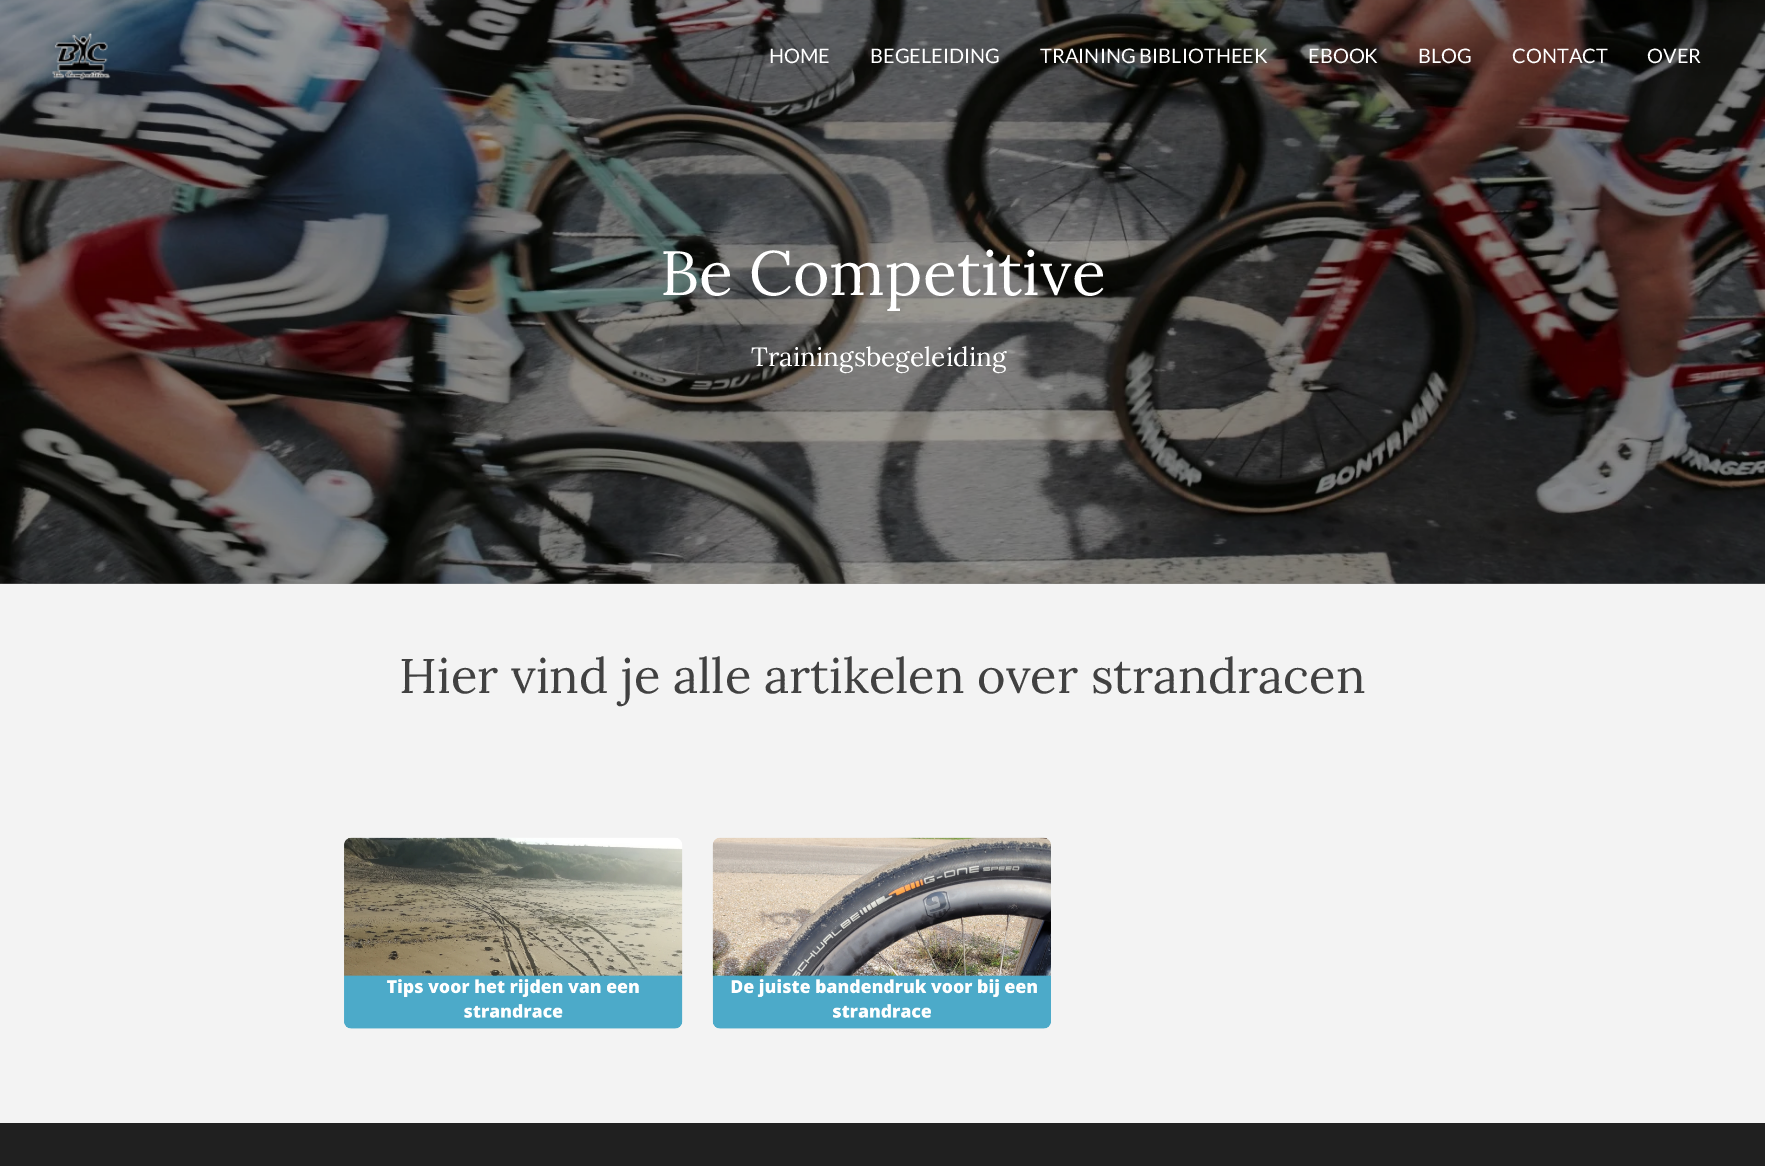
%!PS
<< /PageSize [1765 1166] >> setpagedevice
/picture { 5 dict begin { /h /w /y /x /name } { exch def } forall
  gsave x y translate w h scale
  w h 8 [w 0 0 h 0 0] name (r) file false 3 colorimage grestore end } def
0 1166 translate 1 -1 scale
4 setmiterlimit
1 setgray
0 0 1765 1166 rectfill
(img2.rgb) 0 0 1765 584 picture
(img1.rgb) 52 32 59 48 picture
/Lato-Regular [20 0 0 -20 0 0] selectfont
769 63 moveto (HOME) show
870 63 moveto (BEGELEIDING) show
1040 63 moveto (TRAINING BIBLIOTHEEK) show
1308 63 moveto (EBOOK) show
1418 63 moveto (BLOG) show
1512 63 moveto (CONTACT) show
1647 63 moveto (OVER) show
/Lora-Regular [62.5 0 0 -62.5 0 0] selectfont
660 295 moveto (Be Competitive) show
/Lora-Regular [26.25 0 0 -26.25 0 0] selectfont
751 366 moveto (Trainingsbegeleiding) show
0.953 setgray
0 584 1765 539 rectfill
/Lora-Regular [48.75 0 0 -48.75 0 0] selectfont
0.255 setgray
399 693 moveto (Hier vind je alle artikelen over strandracen) show
(img3.rgb) 344 837 339 192 picture
(img4.rgb) 712 837 339 192 picture
0.125 setgray
0 1123 1765 43 rectfill
showpage
